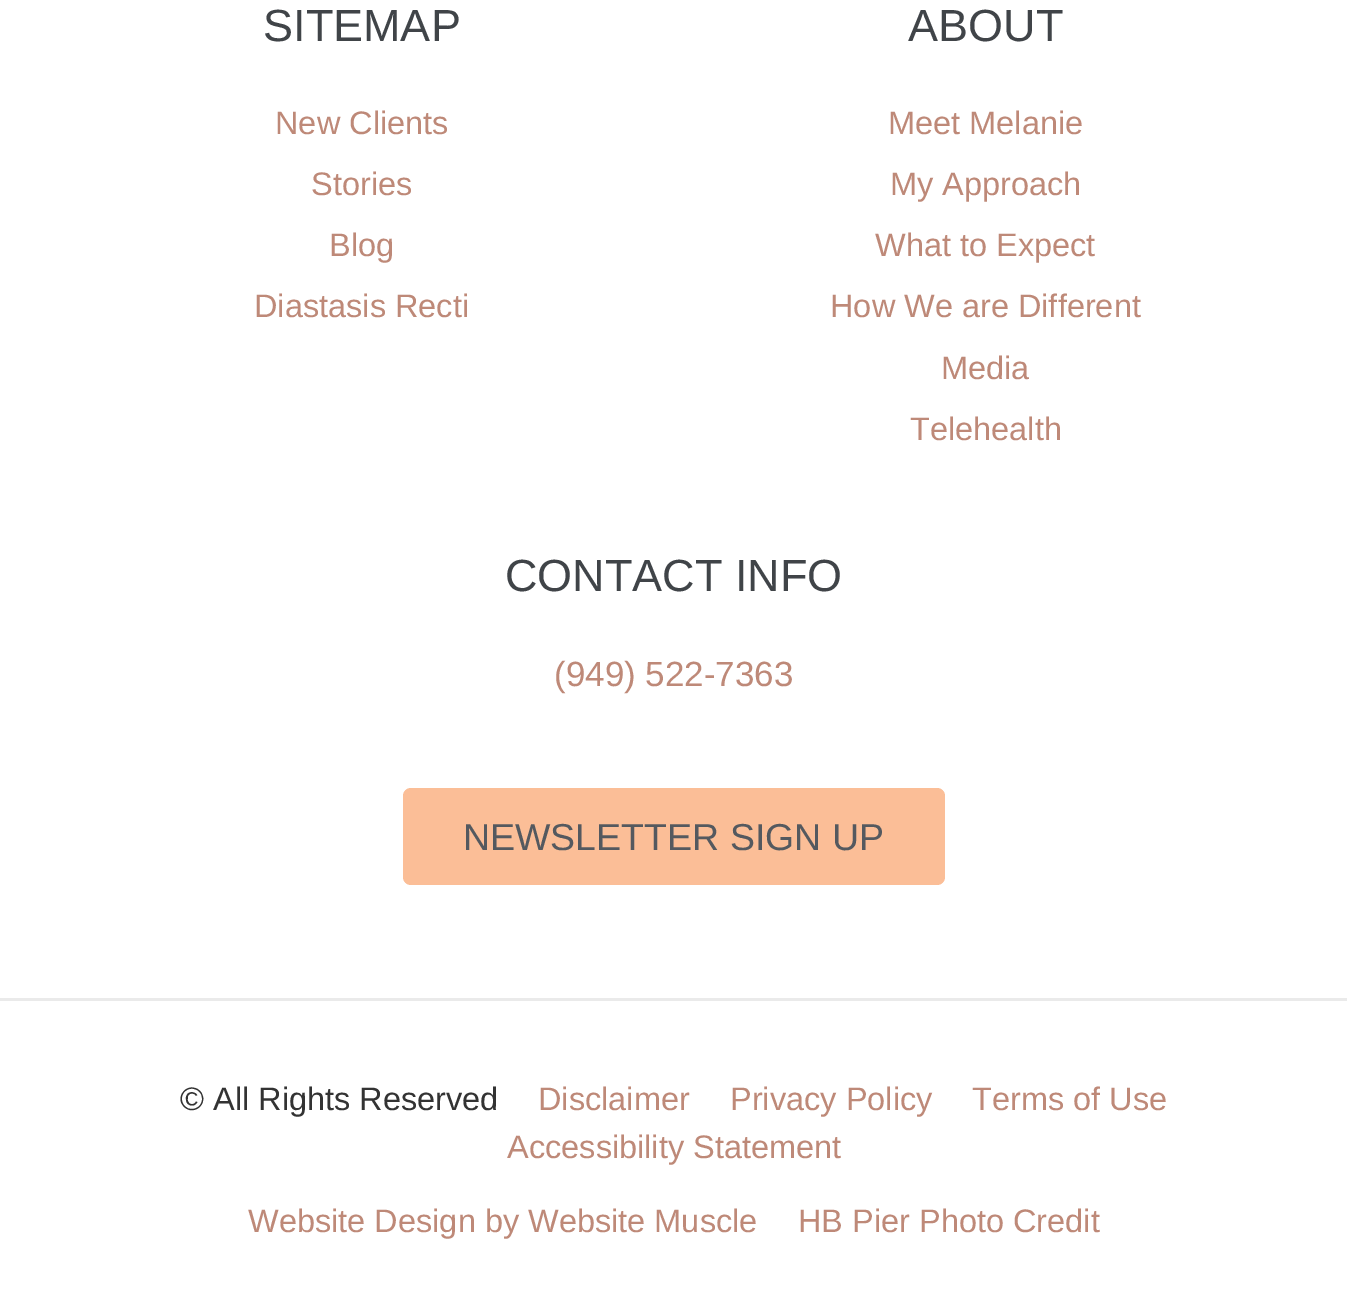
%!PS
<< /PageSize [1347 1294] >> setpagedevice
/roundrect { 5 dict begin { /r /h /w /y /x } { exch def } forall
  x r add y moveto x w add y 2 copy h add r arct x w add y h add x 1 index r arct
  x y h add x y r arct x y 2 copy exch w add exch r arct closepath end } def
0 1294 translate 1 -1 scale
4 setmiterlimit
1 setgray
0 0 1347 1294 rectfill
/LiberationSans-Regular [45 0 0 -45 0 0] selectfont
0.251 0.267 0.282 setrgbcolor
263 41 moveto (SITEMAP) show
/LiberationSans-Regular [32.5 0 0 -32.5 0 0] selectfont
0.745 0.537 0.471 setrgbcolor
275 134 moveto (New Clients) show
311 195 moveto (Stories) show
329 256 moveto (Blog) show
254 317 moveto (Diastasis Recti) show
/LiberationSans-Regular [45 0 0 -45 0 0] selectfont
0.251 0.267 0.282 setrgbcolor
908 41 moveto (ABOUT) show
/LiberationSans-Regular [32.5 0 0 -32.5 0 0] selectfont
0.745 0.537 0.471 setrgbcolor
888 134 moveto (Meet Melanie) show
890 195 moveto (My Approach) show
875 256 moveto (What to Expect) show
830 317 moveto (How We are Different) show
941 379 moveto (Media) show
910 440 moveto (Telehealth) show
/LiberationSans-Regular [45 0 0 -45 0 0] selectfont
0.251 0.267 0.282 setrgbcolor
505 591 moveto (CONTACT INFO) show
/LiberationSans-Regular [35 0 0 -35 0 0] selectfont
0.745 0.537 0.471 setrgbcolor
554 686 moveto (\(949\) 522-7363) show
0.984 0.745 0.592 setrgbcolor
403 788 542 97 8 roundrect fill
/LiberationSans-Regular [37.5 0 0 -37.5 0 0] selectfont
0.329 0.349 0.373 setrgbcolor
463 850 moveto (NEWSLETTER SIGN UP) show
0.918 setgray
0 998 1347 3 rectfill
/LiberationSans-Regular [32.5 0 0 -32.5 0 0] selectfont
0.2 setgray
180 1110 moveto (© All Rights Reserved) show
0.745 0.537 0.471 setrgbcolor
538 1110 moveto (Disclaimer) show
730 1110 moveto (Privacy Policy) show
972 1110 moveto (Terms of Use) show
507 1158 moveto (Accessibility Statement) show
248 1232 moveto (Website Design by Website Muscle) show
798 1232 moveto (HB Pier Photo Credit) show
showpage
